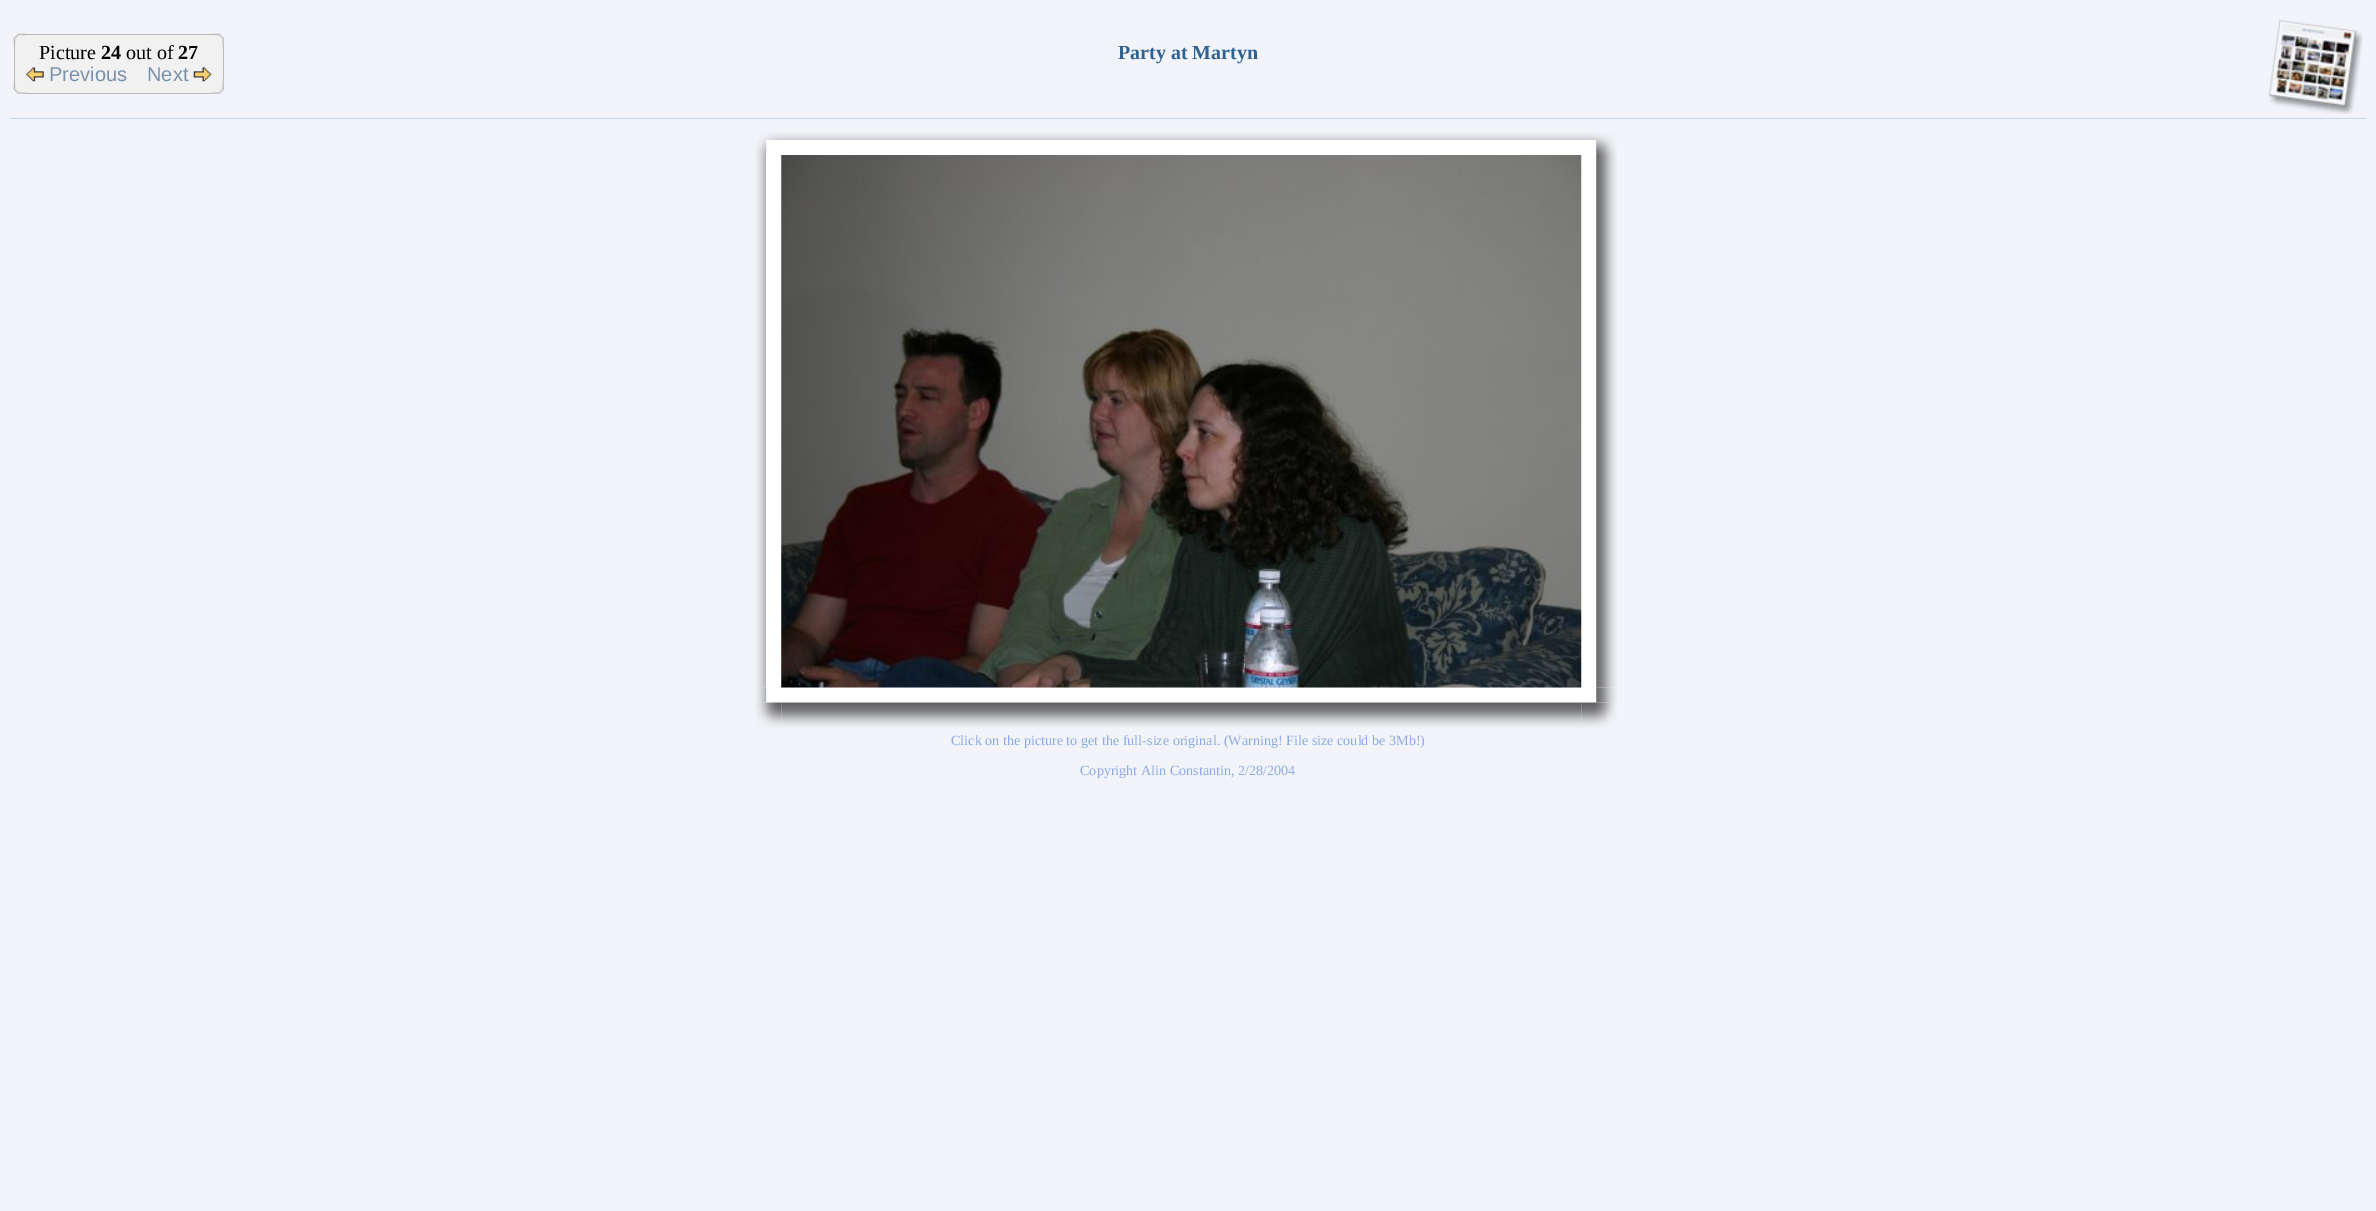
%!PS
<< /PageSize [2376 1211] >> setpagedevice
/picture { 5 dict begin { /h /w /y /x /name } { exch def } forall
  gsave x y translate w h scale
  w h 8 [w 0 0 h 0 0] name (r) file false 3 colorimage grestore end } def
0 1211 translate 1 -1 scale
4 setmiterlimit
0.953 0.957 0.976 setrgbcolor
0 0 2376 1211 rectfill
(img1.rgb) 13 33 13 13 picture
0.722 setgray
14 46 1 35 rectfill
0.945 setgray
15 46 11 35 rectfill
26 35 185 58 rectfill
0.722 setgray
26 93 185 1 rectfill
(img2.rgb) 13 81 14 13 picture
26 34 185 1 rectfill
/LiberationSerif-Regular [20 0 0 -20 0 0] selectfont
0 setgray
39 59 moveto (Picture) show
/LiberationSerif-Bold [20 0 0 -20 0 0] selectfont
101 59 moveto (24) show
/LiberationSerif-Regular [20 0 0 -20 0 0] selectfont
126 59 moveto (out of) show
/LiberationSerif-Bold [20 0 0 -20 0 0] selectfont
178 59 moveto (27) show
(img3.rgb) 26 67 18 15 picture
/LiberationSans-Regular [20 0 0 -20 0 0] selectfont
0.475 0.569 0.671 setrgbcolor
49 81 moveto (Previous) show
147 81 moveto (Next) show
0.945 setgray
211 46 12 35 rectfill
(img4.rgb) 193 67 19 15 picture
0.722 setgray
223 46 1 35 rectfill
(img5.rgb) 211 33 13 14 picture
(img6.rgb) 211 81 13 13 picture
/LiberationSerif-Bold [20 0 0 -20 0 0] selectfont
0.18 0.38 0.58 setrgbcolor
1118 59 moveto (Party at Martyn) show
(img7.rgb) 2268 18 95 96 picture
0.769 0.831 0.953 setrgbcolor
10 118 2356 1 rectfill
(img8.rgb) 759 132 22 8 picture
(img9.rgb) 781 132 801 8 picture
(img10.rgb) 1581 132 32 8 picture
1 setgray
766 140 830 15 rectfill
(img11.rgb) 755 140 12 15 picture
(img12.rgb) 1596 140 21 15 picture
(img13.rgb) 755 155 11 533 picture
766 155 15 533 rectfill
1581 155 15 533 rectfill
(img14.rgb) 781 155 801 533 picture
(img15.rgb) 1596 155 22 533 picture
766 688 830 15 rectfill
(img16.rgb) 755 687 12 16 picture
(img17.rgb) 1596 687 22 16 picture
(img19.rgb) 781 702 801 26 picture
(img18.rgb) 755 702 27 26 picture
(img20.rgb) 1581 702 37 26 picture
/LiberationSerif-Regular [14.15 0 0 -14.15 0 0] selectfont
0.549 0.667 0.906 setrgbcolor
951 745 moveto (Click on the picture to get the full-size original. \(Warning! File size could be 3Mb!\)) show
1080 775 moveto (Copyright Alin Constantin, 2/28/2004) show
showpage
